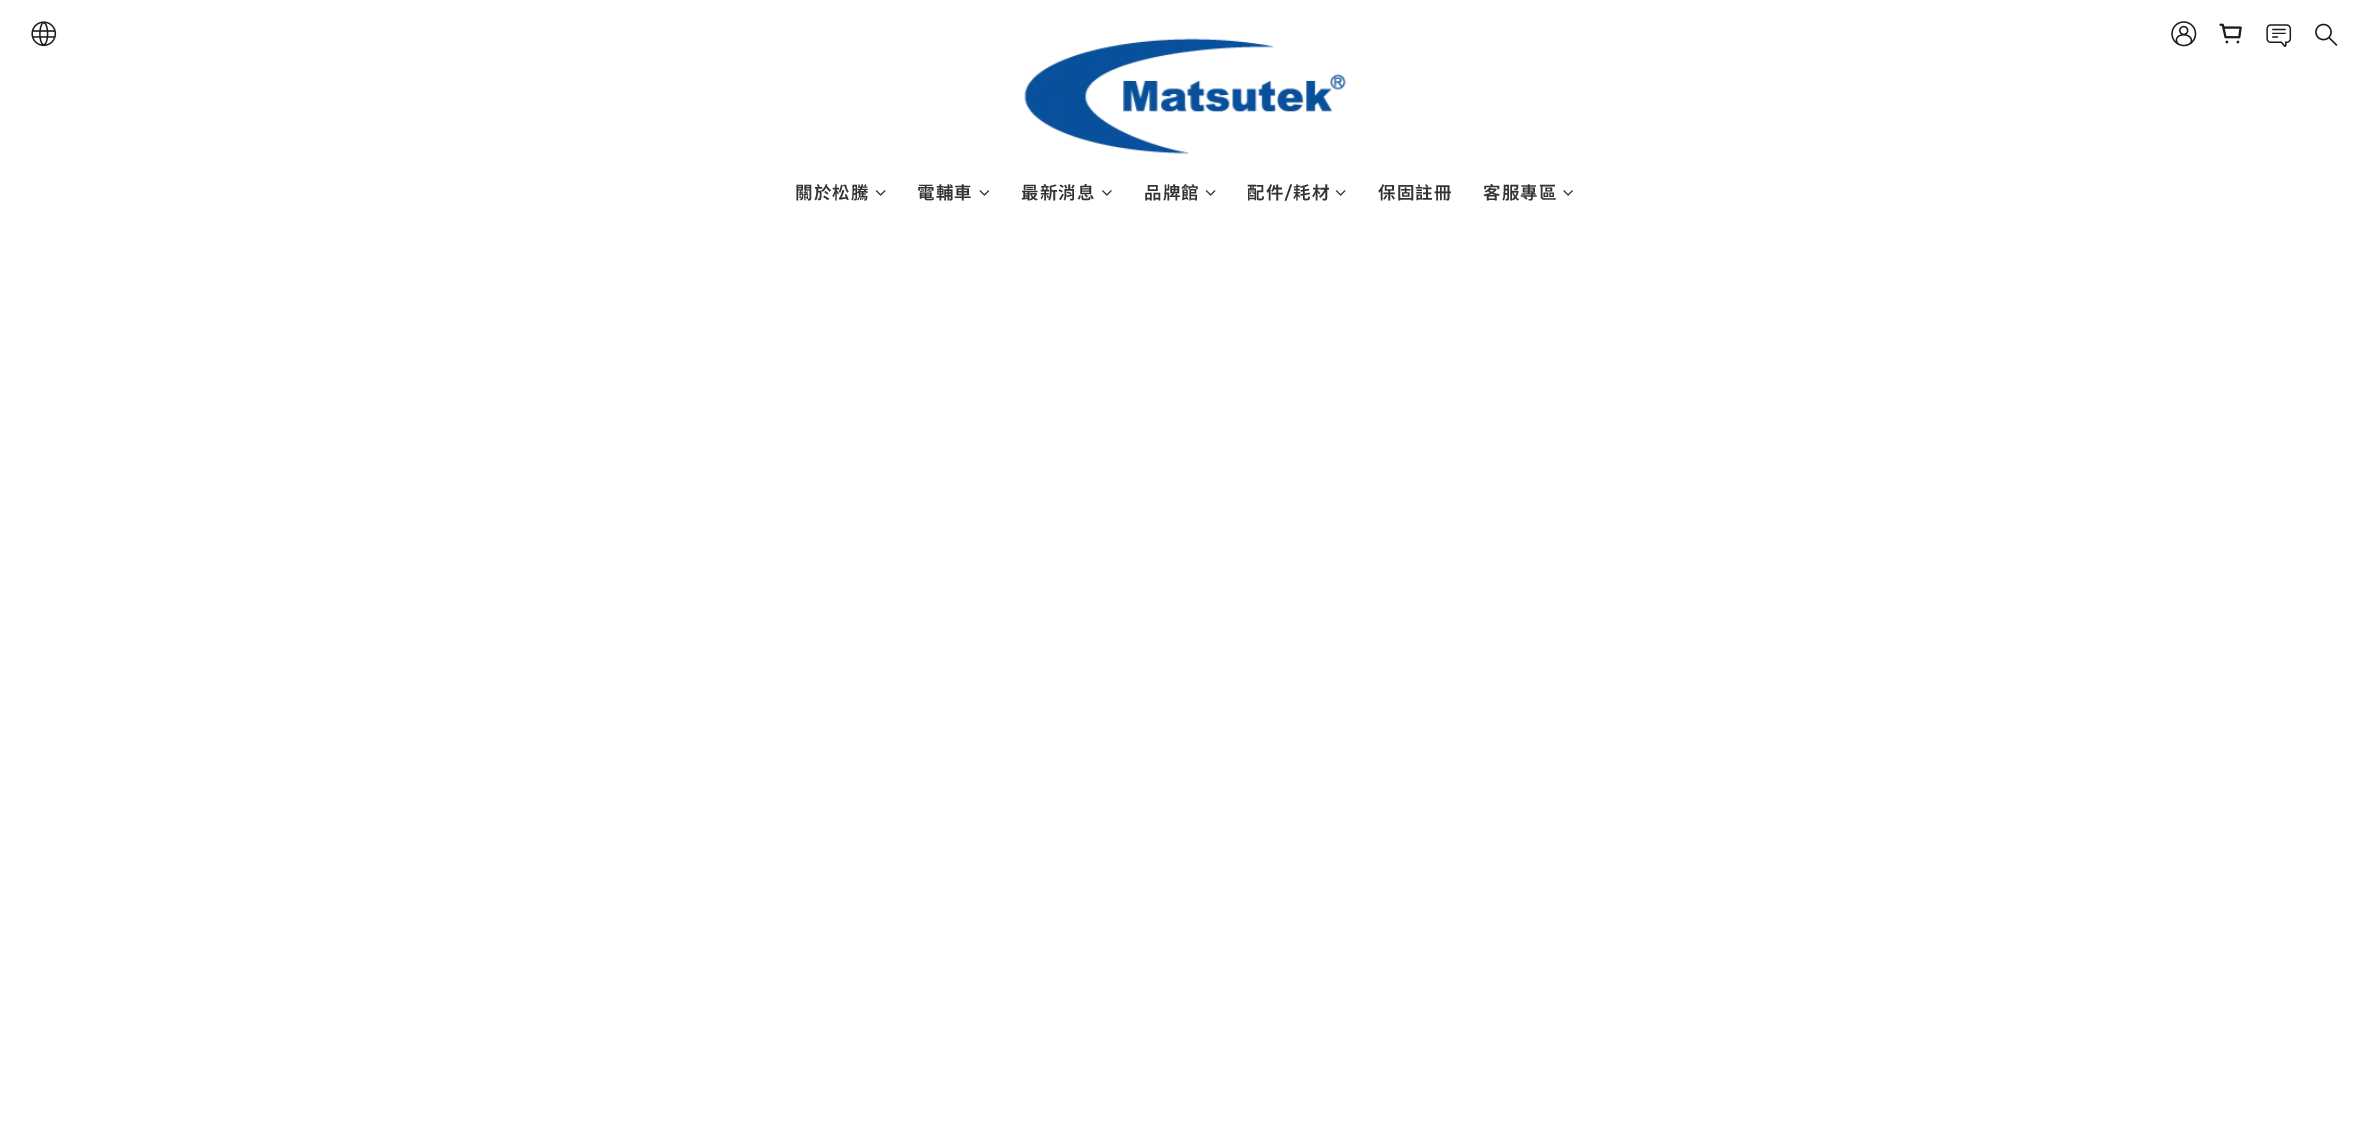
%!PS
<< /PageSize [2369 1132] >> setpagedevice
/picture { 5 dict begin { /h /w /y /x /name } { exch def } forall
  gsave x y translate w h scale
  w h 8 [w 0 0 h 0 0] name (r) file false 3 colorimage grestore end } def
0 1132 translate 1 -1 scale
4 setmiterlimit
1 setgray
0 0 2369 1132 rectfill
(img1.rgb) 31 21 26 26 picture
(img2.rgb) 2171 21 26 26 picture
(img3.rgb) 2219 23 23 21 picture
(img4.rgb) 2266 24 26 23 picture
(img5.rgb) 2315 23 23 23 picture
(img6.rgb) 1024 38 323 116 picture
/NotoSansTC-SemiBold [17.5 0 0 -17.5 0 0] selectfont
0.2 setgray
795 199 moveto 1 0 (關於松騰) ashow
(img7.rgb) 875 190 11 6 picture
917 199 moveto 1 0 (電輔車) ashow
(img8.rgb) 979 190 11 6 picture
1021 199 moveto 1 0 (最新消息) ashow
(img9.rgb) 1102 190 10 6 picture
1144 199 moveto 1 0 (品牌館) ashow
(img7.rgb) 1205 190 11 6 picture
1247 199 moveto 1 0 (配件) ashow
/Montserrat-SemiBold [17.5 0 0 -17.5 0 0] selectfont
1285 199 moveto 1 0 (/) ashow
/NotoSansTC-SemiBold [17.5 0 0 -17.5 0 0] selectfont
1293 199 moveto 1 0 (耗材) ashow
(img7.rgb) 1335 190 11 6 picture
1378 199 moveto 1 0 (保固註冊) ashow
1483 199 moveto 1 0 (客服專區) ashow
(img10.rgb) 1563 190 10 6 picture
showpage
